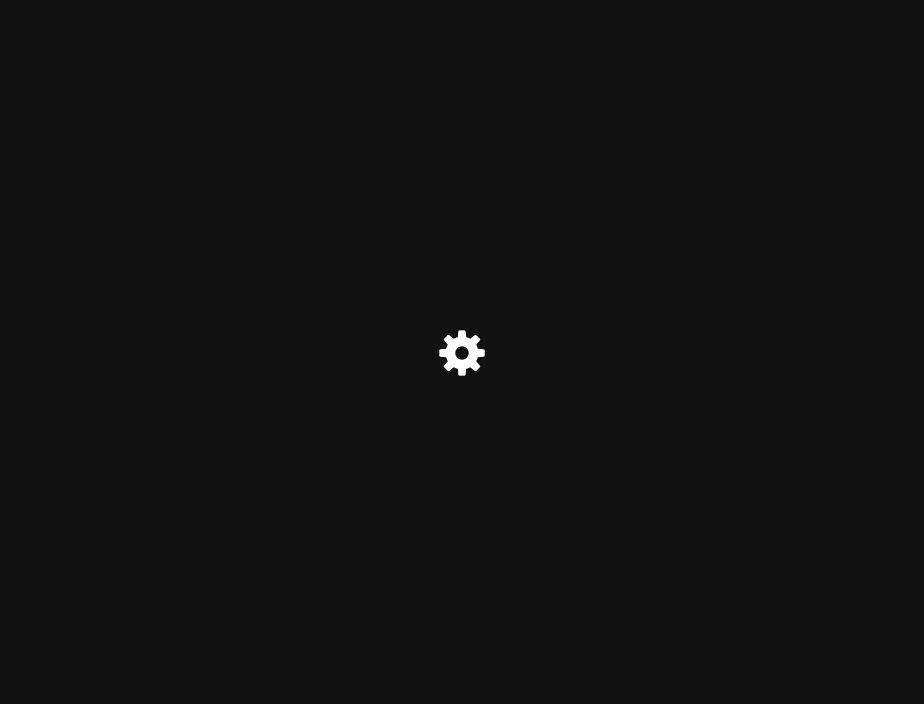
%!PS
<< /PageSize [924 704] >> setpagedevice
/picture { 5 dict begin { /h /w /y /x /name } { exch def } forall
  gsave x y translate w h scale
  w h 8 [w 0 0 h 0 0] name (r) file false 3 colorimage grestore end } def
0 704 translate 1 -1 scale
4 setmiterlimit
0.067 setgray
0 0 924 704 rectfill
(img1.rgb) 439 330 46 46 picture
showpage
